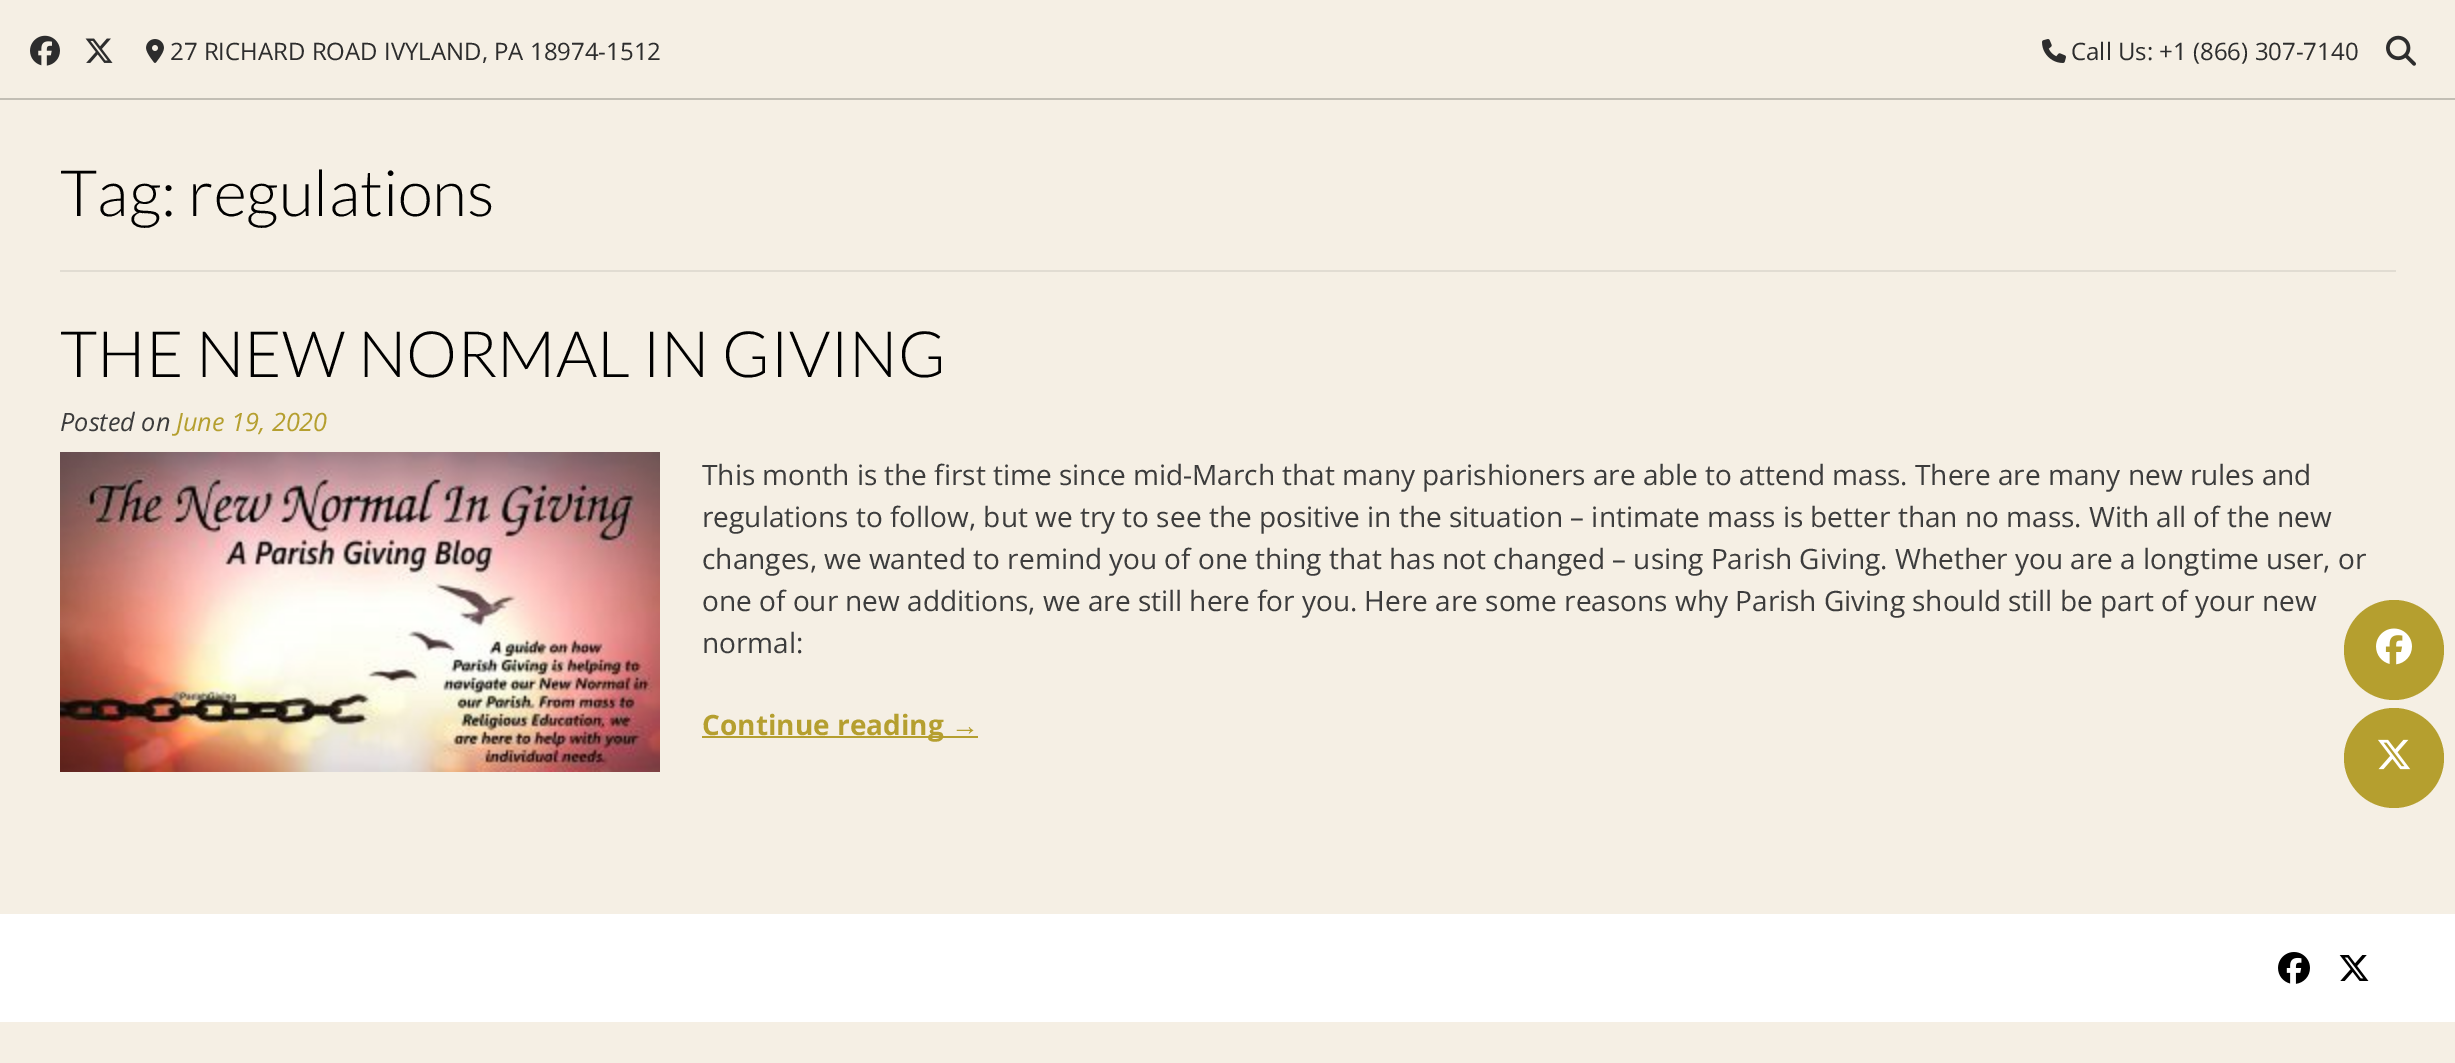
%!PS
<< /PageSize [2455 1063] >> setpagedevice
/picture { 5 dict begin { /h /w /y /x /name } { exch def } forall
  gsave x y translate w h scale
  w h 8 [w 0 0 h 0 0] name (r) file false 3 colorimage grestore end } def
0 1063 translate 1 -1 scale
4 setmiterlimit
0.961 0.937 0.894 setrgbcolor
0 0 2455 1063 rectfill
0.761 0.745 0.706 setrgbcolor
0 98 2455 2 rectfill
(img1.rgb) 30 35 30 31 picture
(img2.rgb) 85 38 28 25 picture
(img3.rgb) 146 39 18 24 picture
/OpenSans-Regular [24 0 0 -24 0 0] selectfont
0.176 setgray
170 60 moveto (27 RICHARD ROAD IVYLAND, PA 18974-1512) show
(img4.rgb) 2042 39 24 24 picture
2071 60 moveto (Call Us: +1 \(866\) 307-7140) show
(img5.rgb) 2386 35 30 31 picture
0.882 0.863 0.824 setrgbcolor
60 270 2336 2 rectfill
/Lato-Light [64 0 0 -64 0 0] selectfont
0 setgray
60 216 moveto (Tag: regulations) show
60 377 moveto (THE NEW NORMAL IN GIVING) show
/OpenSans-Italic [25.25 0 0 -25.25 0 0] selectfont
0.235 setgray
60 431 moveto (Posted on) show
0.71 0.624 0.184 setrgbcolor
176 431 moveto (June 19, 2020) show
(img6.rgb) 60 452 600 320 picture
/OpenSans-Regular [28 0 0 -28 0 0] selectfont
0.235 setgray
702 485 moveto (This month is the first time since mid-March that many parishioners are able to attend mass. There are many new rules and) show
702 527 moveto (regulations to follow, but we try to see the positive in the situation – intimate mass is better than no mass. With all of the new) show
702 569 moveto (changes, we wanted to remind you of one thing that has not changed – using Parish Giving. Whether you are a longtime user, or) show
702 611 moveto (one of our new additions, we are still here for you. Here are some reasons why Parish Giving should still be part of your new) show
702 653 moveto (normal:) show
0.71 0.624 0.184 setrgbcolor
702 736 276 2 rectfill
/OpenSans-Bold [28 0 0 -28 0 0] selectfont
702 735 moveto (Continue reading) show
/LiberationSans-Bold [28 0 0 -28 0 0] selectfont
951 735 moveto (→) show
1 setgray
0 914 2455 108 rectfill
(img7.rgb) 2278 952 32 32 picture
(img8.rgb) 2339 955 30 26 picture
0.71 0.624 0.184 setrgbcolor
newpath 2394 650 50 0 360 arc closepath fill
(img9.rgb) 2376 628 36 37 picture
newpath 2394 758 50 0 360 arc closepath fill
(img10.rgb) 2378 739 33 31 picture
showpage
